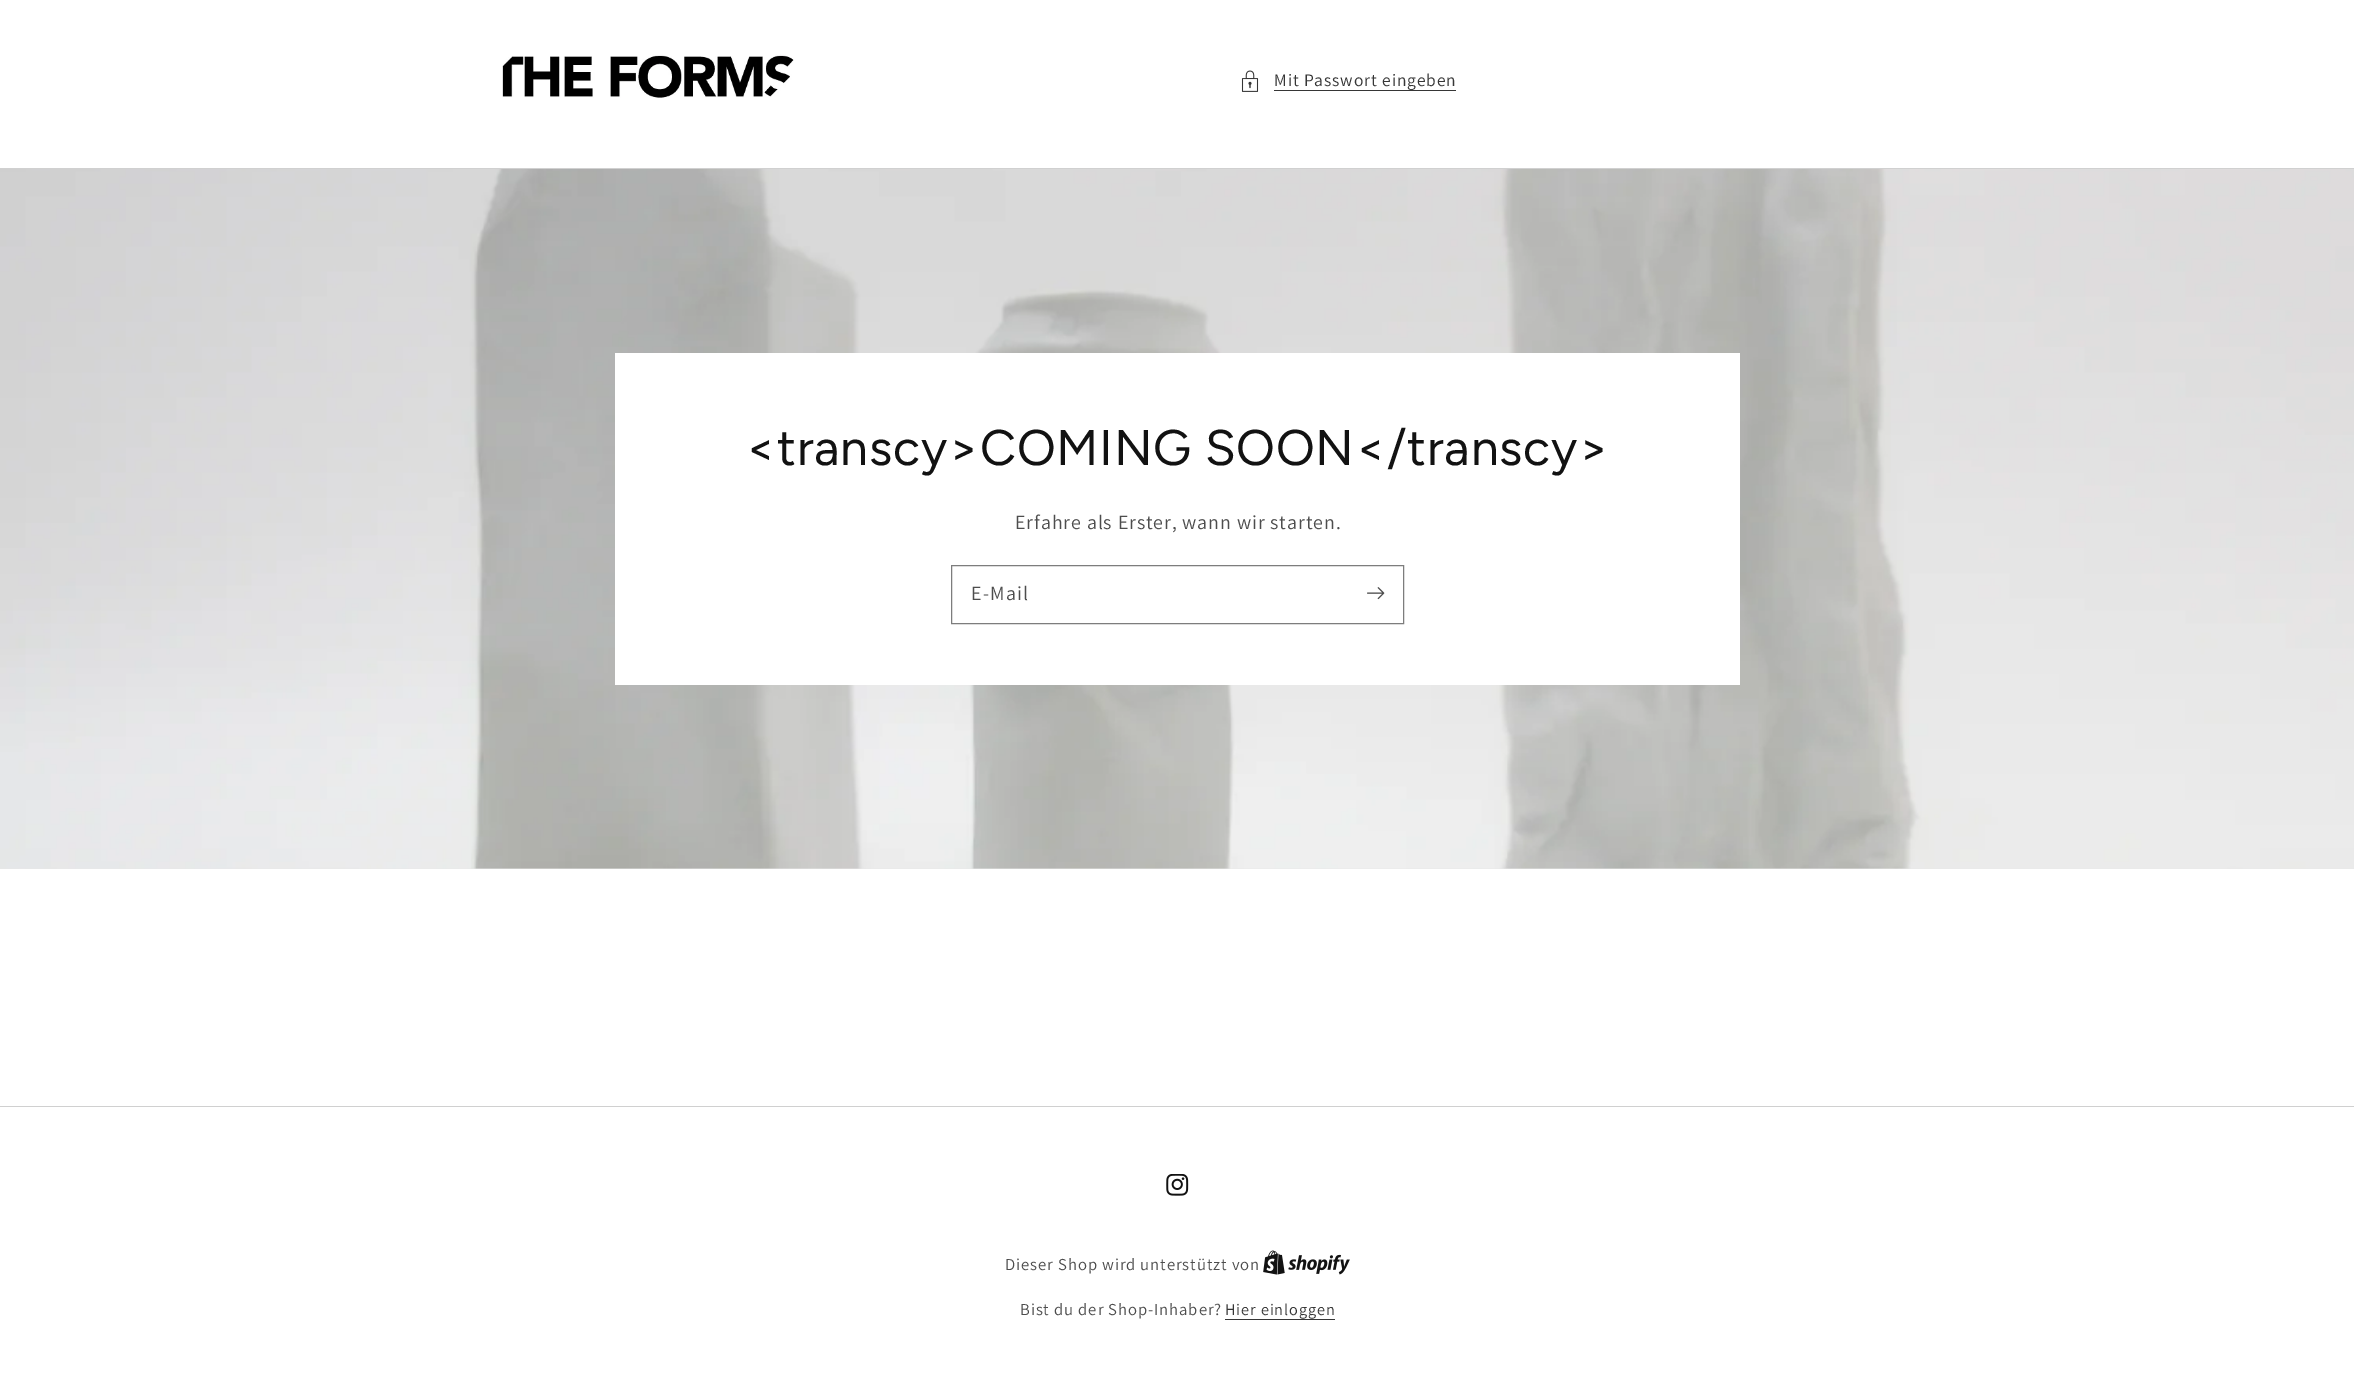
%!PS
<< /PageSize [2354 1374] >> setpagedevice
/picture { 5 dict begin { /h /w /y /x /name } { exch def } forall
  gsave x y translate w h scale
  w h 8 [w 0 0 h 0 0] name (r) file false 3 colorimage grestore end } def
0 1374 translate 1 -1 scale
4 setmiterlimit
1 setgray
0 0 2354 1374 rectfill
(img1.rgb) 502 54 292 44 picture
(img2.rgb) 1241 70 18 22 picture
/Assistant-Regular [17.5 0 0 -17.5 0 0] selectfont
0.212 setgray
1274 86 moveto 0.9 0 (Mit Passwort eingeben) ashow
1274 90 182 1 rectfill
0.816 setgray
0 168 2354 1 rectfill
0.91 setgray
0 868 2354 1 rectfill
(img3.rgb) 0 169 2354 700 picture
1 setgray
615 353 1125 332 rectfill
/Figtree-Regular [50 0 0 -50 0 0] selectfont
0.071 setgray
745 465 moveto 0.75 0 (<transcy>COMING SOON</transcy>) ashow
/Assistant-Regular [20 0 0 -20 0 0] selectfont
0.302 setgray
1015 529 moveto 0.9 0 (Erfahre als Erster, wann wir starten.) ashow
0.49 setgray
951.5 565.5 452 58 rectstroke
0.302 setgray
971 600 moveto 1.25 0 (E-Mail) ashow
(img4.rgb) 1367 587 18 13 picture
0.816 setgray
0 1106 2354 1 rectfill
(img5.rgb) 1166 1174 23 22 picture
/Assistant-Regular [16.7 0 0 -16.7 0 0] selectfont
0.302 setgray
1005 1270 moveto 0.9 0 (Dieser Shop wird unterstützt von) ashow
(img6.rgb) 1263 1250 87 25 picture
1020 1315 moveto 0.9 0 (Bist du der Shop-Inhaber?) ashow
/Assistant-Regular [16.25 0 0 -16.25 0 0] selectfont
0.212 setgray
1225 1315 moveto 0.9 0 (Hier einloggen) ashow
1225 1319 110 1 rectfill
showpage
